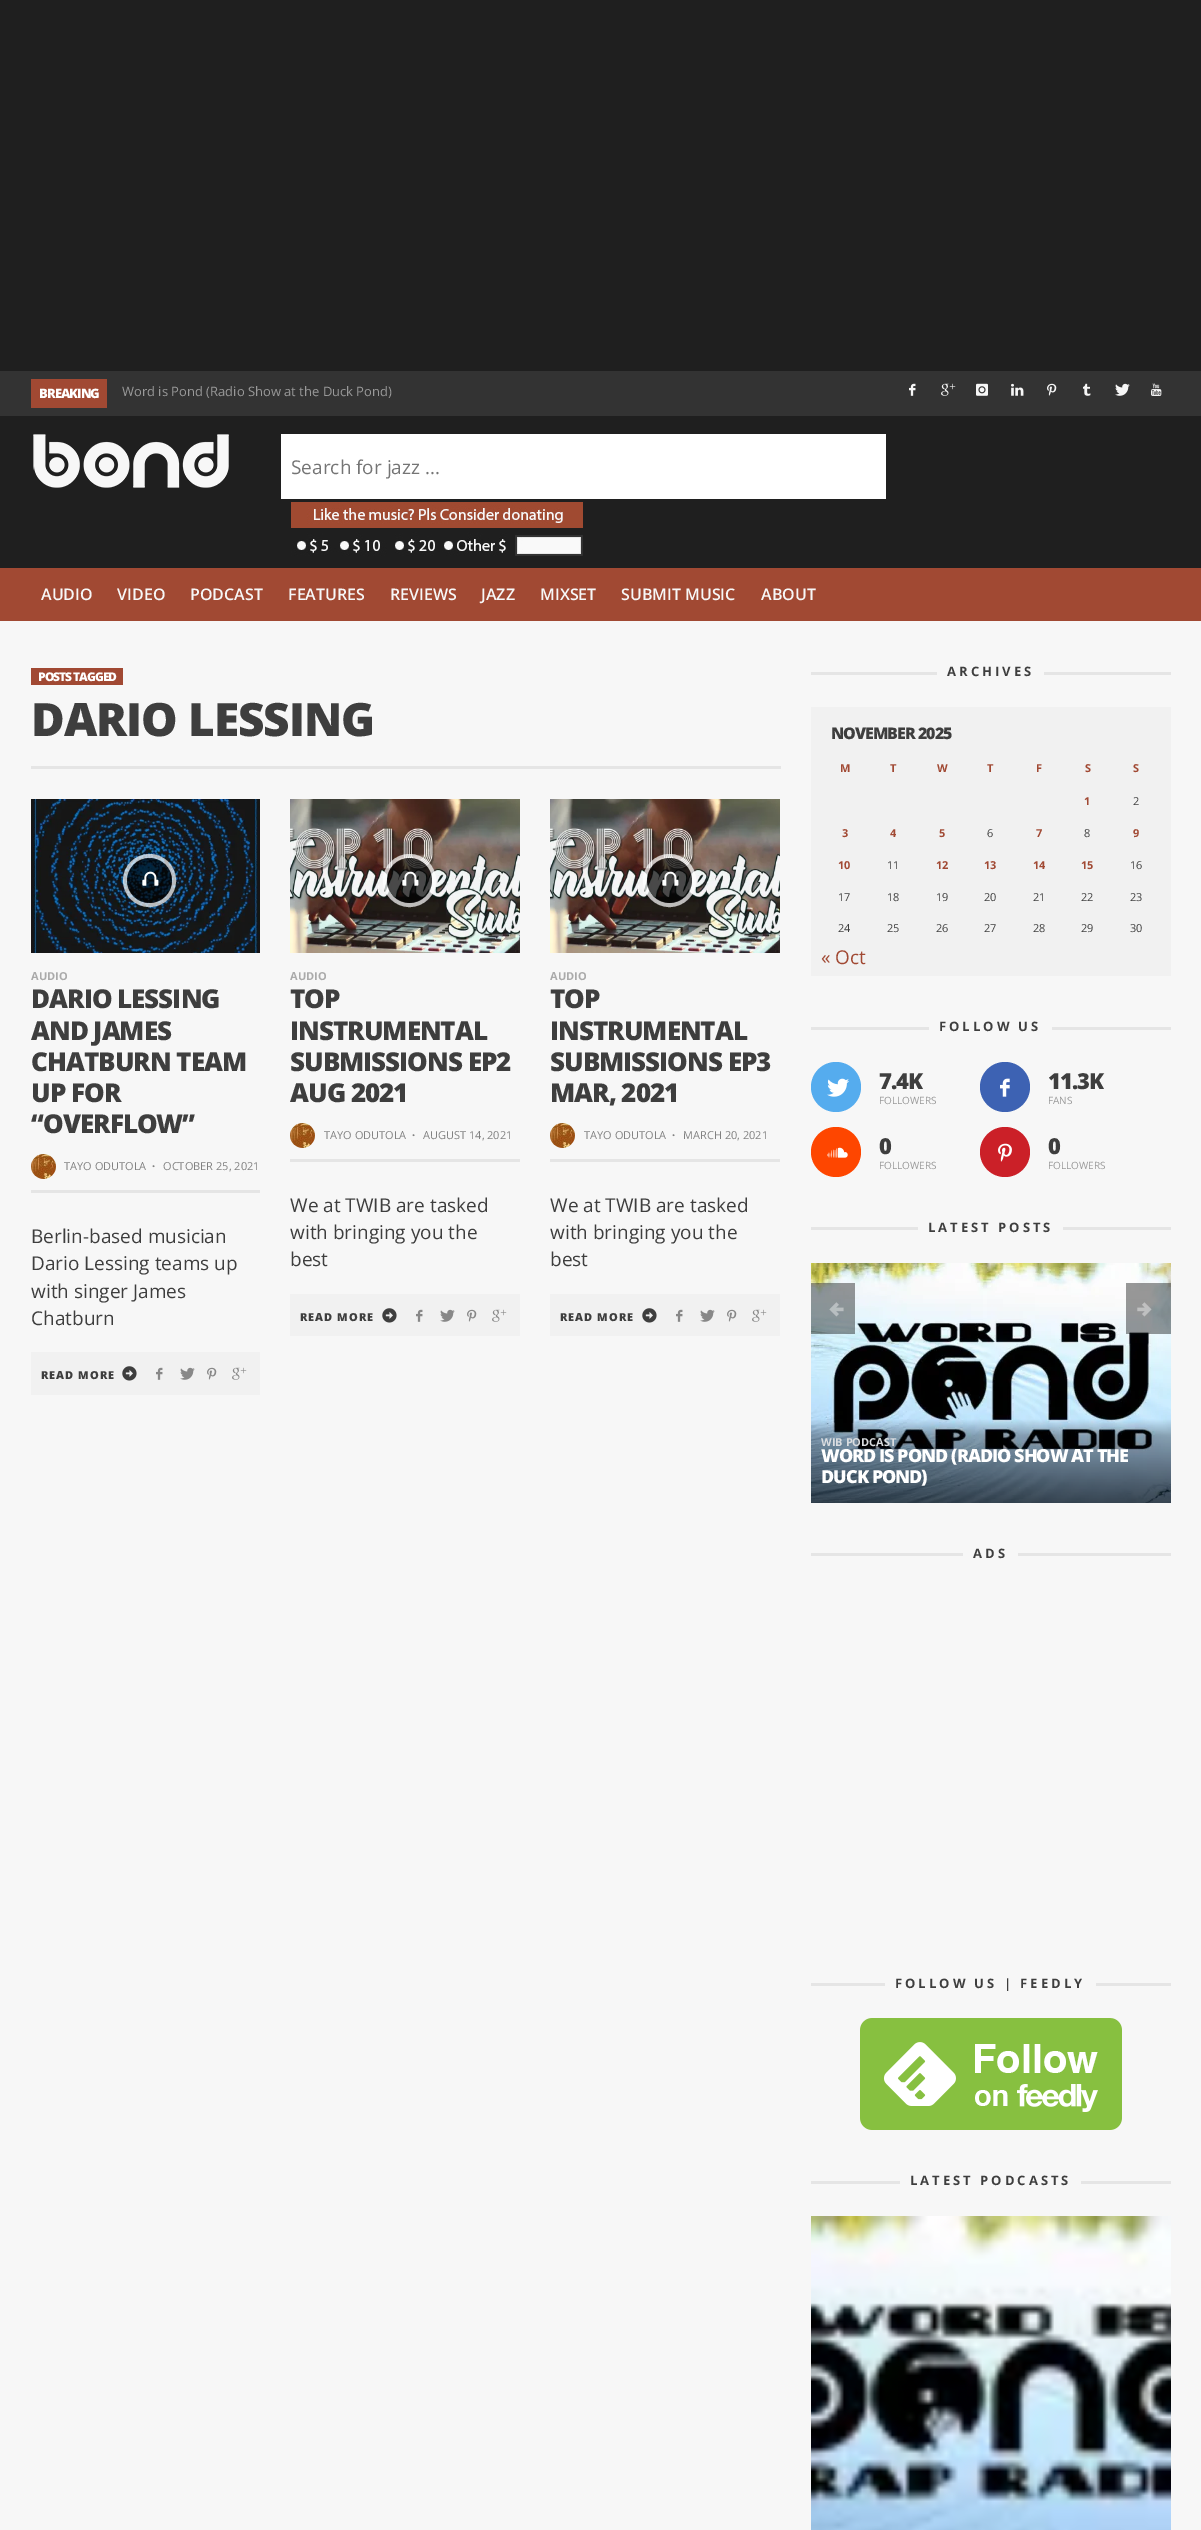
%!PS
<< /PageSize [1201 2530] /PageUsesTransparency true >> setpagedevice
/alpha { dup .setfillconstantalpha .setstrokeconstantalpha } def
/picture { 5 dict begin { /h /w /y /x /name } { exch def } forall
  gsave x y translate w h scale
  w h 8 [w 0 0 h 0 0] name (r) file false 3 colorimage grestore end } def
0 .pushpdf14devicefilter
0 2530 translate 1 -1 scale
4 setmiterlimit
0.969 setgray
0 0 1201 2530 rectfill
0.122 setgray
0 0 1201 371 rectfill
0.2 setgray
0 371 1201 45 rectfill
0.631 0.286 0.2 setrgbcolor
31 379 76 29 rectfill
/OpenSans-ExtraBold [13 0 0 -13 0 0] selectfont
1 setgray
39 398 moveto -1 0 (BREAKING) ashow
/OpenSans-Regular [13 0 0 -13 0 0] selectfont
0.6 setgray
122 396 moveto (Word is Pond \(Radio Show at the Duck Pond\)) show
(img1.rgb) 909 383 7 13 picture
(img2.rgb) 941 383 15 13 picture
(img3.rgb) 976 383 12 13 picture
(img4.rgb) 1011 383 13 13 picture
(img5.rgb) 1047 383 10 13 picture
(img6.rgb) 1083 383 8 13 picture
(img7.rgb) 1115 383 15 13 picture
(img8.rgb) 1151 383 11 13 picture
0.122 setgray
0 416 1201 152 rectfill
(img9.rgb) 33 434 196 54 picture
1 setgray
281 434 605 65 rectfill
/OpenSans-Regular [19 0 0 -19 0 0] selectfont
0.459 setgray
291 474 moveto (Search for jazz ...) show
(img10.rgb) 291 502 292 54 picture
0.631 0.286 0.2 setrgbcolor
0 568 1201 53 rectfill
/OpenSans-SemiBold [16 0 0 -16 0 0] selectfont
0.969 setgray
41 600 moveto (AUDIO) show
117 600 moveto (VIDEO) show
190 600 moveto (PODCAST) show
288 600 moveto (FEATURES) show
390 600 moveto (REVIEWS) show
481 600 moveto (JAZZ) show
540 600 moveto (MIXSET) show
621 600 moveto (SUBMIT MUSIC) show
761 600 moveto (ABOUT) show
0.898 setgray
31 766 750 3 rectfill
0.631 0.286 0.2 setrgbcolor
31 668 92 17 rectfill
/OpenSans-ExtraBold [12 0 0 -12 0 0] selectfont
1 setgray
38 681 moveto -1 0 (POSTS TAGGED) ashow
/OpenSans-ExtraBold [46 0 0 -46 0 0] selectfont
0.243 setgray
31 736 moveto -1 0 (DARIO LESSING) ashow
(img11.rgb) 31 799 229 154 picture
0.7 alpha
1 setgray
4 setlinewidth
newpath 149.5 880.5 24.5 0 360 arc closepath stroke
0 setgray
newpath 149.5 880.5 22.5 0 360 arc closepath fill
1 alpha
(img12.rgb) 142 871 17 15 picture
/OpenSans-Bold [11 0 0 -11 0 0] selectfont
0.667 setgray
31 980 moveto (AUDIO) show
/OpenSans-ExtraBold [26 0 0 -26 0 0] selectfont
0.243 setgray
31 1008 moveto -1 0 (DARIO LESSING) ashow
31 1040 moveto -1 0 (AND JAMES) ashow
31 1071 moveto -1 0 (CHATBURN TEAM) ashow
31 1102 moveto -1 0 (UP FOR) ashow
31 1133 moveto -1 0 (“OVERFLOW”) ashow
0.898 setgray
31 1190 229 3 rectfill
(img13.rgb) 31 1154 25 25 picture
/OpenSans-Regular [11 0 0 -11 0 0] selectfont
0.506 setgray
64 1170 moveto (TAYO ODUTOLA) show
/OpenSans-Bold [11 0 0 -11 0 0] selectfont
152 1170 moveto (·) show
/OpenSans-Regular [11 0 0 -11 0 0] selectfont
163 1170 moveto (OCTOBER 25, 2021) show
/OpenSans-Regular [19 0 0 -19 0 0] selectfont
0.243 setgray
31 1243 moveto (Berlin-based musician) show
31 1270 moveto (Dario Lessing teams up) show
31 1298 moveto (with singer James) show
31 1325 moveto (Chatburn) show
0.945 setgray
31 1352 229 43 rectfill
/OpenSans-ExtraBold [11 0 0 -11 0 0] selectfont
0.243 setgray
41 1379 moveto 1 0 (READ MORE) ashow
(img14.rgb) 122 1366 15 15 picture
(img15.rgb) 156 1367 7 13 picture
(img16.rgb) 180 1367 15 13 picture
(img17.rgb) 207 1367 10 13 picture
(img18.rgb) 232 1367 15 13 picture
(img19.rgb) 290 799 230 154 picture
0.7 alpha
1 setgray
newpath 409.5 880.5 24.5 0 360 arc closepath stroke
0 setgray
newpath 409.5 880.5 22.5 0 360 arc closepath fill
1 alpha
(img20.rgb) 402 871 17 15 picture
/OpenSans-Bold [11 0 0 -11 0 0] selectfont
0.667 setgray
290 980 moveto (AUDIO) show
/OpenSans-ExtraBold [26 0 0 -26 0 0] selectfont
0.243 setgray
290 1008 moveto -1 0 (TOP) ashow
290 1040 moveto -1 0 (INSTRUMENTAL) ashow
290 1071 moveto -1 0 (SUBMISSIONS EP2) ashow
290 1102 moveto -1 0 (AUG 2021) ashow
0.898 setgray
290 1159 230 3 rectfill
(img13.rgb) 290 1123 25 25 picture
/OpenSans-Regular [11 0 0 -11 0 0] selectfont
0.506 setgray
324 1139 moveto (TAYO ODUTOLA) show
/OpenSans-Bold [11 0 0 -11 0 0] selectfont
412 1139 moveto (·) show
/OpenSans-Regular [11 0 0 -11 0 0] selectfont
423 1139 moveto (AUGUST 14, 2021) show
/OpenSans-Regular [19 0 0 -19 0 0] selectfont
0.243 setgray
290 1212 moveto (We at TWIB are tasked) show
290 1239 moveto (with bringing you the) show
290 1266 moveto (best) show
0.945 setgray
290 1294 230 42 rectfill
/OpenSans-ExtraBold [11 0 0 -11 0 0] selectfont
0.243 setgray
300 1321 moveto 1 0 (READ MORE) ashow
(img14.rgb) 382 1308 15 15 picture
(img15.rgb) 416 1309 7 13 picture
(img16.rgb) 440 1309 15 13 picture
(img17.rgb) 467 1309 10 13 picture
(img18.rgb) 492 1309 15 13 picture
(img21.rgb) 550 799 230 154 picture
0.7 alpha
1 setgray
newpath 669.5 880.5 24.5 0 360 arc closepath stroke
0 setgray
newpath 669.5 880.5 22.5 0 360 arc closepath fill
1 alpha
(img22.rgb) 662 871 17 15 picture
/OpenSans-Bold [11 0 0 -11 0 0] selectfont
0.667 setgray
550 980 moveto (AUDIO) show
/OpenSans-ExtraBold [26 0 0 -26 0 0] selectfont
0.243 setgray
550 1008 moveto -1 0 (TOP) ashow
550 1040 moveto -1 0 (INSTRUMENTAL) ashow
550 1071 moveto -1 0 (SUBMISSIONS EP3) ashow
550 1102 moveto -1 0 (MAR, 2021) ashow
0.898 setgray
550 1159 230 3 rectfill
(img23.rgb) 550 1123 25 25 picture
/OpenSans-Regular [11 0 0 -11 0 0] selectfont
0.506 setgray
584 1139 moveto (TAYO ODUTOLA) show
/OpenSans-Bold [11 0 0 -11 0 0] selectfont
672 1139 moveto (·) show
/OpenSans-Regular [11 0 0 -11 0 0] selectfont
683 1139 moveto (MARCH 20, 2021) show
/OpenSans-Regular [19 0 0 -19 0 0] selectfont
0.243 setgray
550 1212 moveto (We at TWIB are tasked) show
550 1239 moveto (with bringing you the) show
550 1266 moveto (best) show
0.945 setgray
550 1294 230 42 rectfill
/OpenSans-ExtraBold [11 0 0 -11 0 0] selectfont
0.243 setgray
560 1321 moveto 1 0 (READ MORE) ashow
(img14.rgb) 642 1308 15 15 picture
(img15.rgb) 676 1309 7 13 picture
(img16.rgb) 700 1309 15 13 picture
(img17.rgb) 727 1309 10 13 picture
(img18.rgb) 752 1309 15 13 picture
0.898 setgray
811 672 126 3 rectfill
/OpenSans-Bold [13 0 0 -13 0 0] selectfont
0.243 setgray
947 676 moveto 3 0 (ARCHIVES) ashow
0.898 setgray
1044 672 127 3 rectfill
0.945 setgray
811 707 360 269 rectfill
/OpenSans-ExtraBold [16 0 0 -16 0 0] selectfont
0.243 setgray
831 739 moveto -1 0 (NOVEMBER 2025) ashow
/OpenSans-Bold [11 0 0 -11 0 0] selectfont
0.631 0.286 0.2 setrgbcolor
840 772 moveto (M) show
890 772 moveto (T) show
937 772 moveto (W) show
987 772 moveto (T) show
1036 772 moveto (F) show
1085 772 moveto (S) show
1133 772 moveto (S) show
1084 805 moveto (1) show
/OpenSans-Regular [11 0 0 -11 0 0] selectfont
0.243 setgray
1133 805 moveto (2) show
/OpenSans-Bold [11 0 0 -11 0 0] selectfont
0.631 0.286 0.2 setrgbcolor
842 837 moveto (3) show
890 837 moveto (4) show
939 837 moveto (5) show
/OpenSans-Regular [11 0 0 -11 0 0] selectfont
0.243 setgray
987 837 moveto (6) show
/OpenSans-Bold [11 0 0 -11 0 0] selectfont
0.631 0.286 0.2 setrgbcolor
1036 837 moveto (7) show
/OpenSans-Regular [11 0 0 -11 0 0] selectfont
0.243 setgray
1084 837 moveto (8) show
/OpenSans-Bold [11 0 0 -11 0 0] selectfont
0.631 0.286 0.2 setrgbcolor
1133 837 moveto (9) show
838 869 moveto (10) show
/OpenSans-Regular [11 0 0 -11 0 0] selectfont
0.243 setgray
887 869 moveto (11) show
/OpenSans-Bold [11 0 0 -11 0 0] selectfont
0.631 0.286 0.2 setrgbcolor
936 869 moveto (12) show
984 869 moveto (13) show
1033 869 moveto (14) show
1081 869 moveto (15) show
/OpenSans-Regular [11 0 0 -11 0 0] selectfont
0.243 setgray
1130 869 moveto (16) show
838 901 moveto (17) show
887 901 moveto (18) show
936 901 moveto (19) show
984 901 moveto (20) show
1033 901 moveto (21) show
1081 901 moveto (22) show
1130 901 moveto (23) show
838 932 moveto (24) show
887 932 moveto (25) show
936 932 moveto (26) show
984 932 moveto (27) show
1033 932 moveto (28) show
1081 932 moveto (29) show
1130 932 moveto (30) show
/OpenSans-Regular [19 0 0 -19 0 0] selectfont
0.631 0.286 0.2 setrgbcolor
821 964 moveto (« Oct) show
0.898 setgray
811 1027 118 3 rectfill
/OpenSans-Bold [13 0 0 -13 0 0] selectfont
0.243 setgray
939 1031 moveto 3 0 (FOLLOW US) ashow
0.898 setgray
1052 1027 119 3 rectfill
0.333 0.675 0.933 setrgbcolor
newpath 836 1087 25 0 360 arc closepath fill
(img24.rgb) 827 1078 22 19 picture
/OpenSans-ExtraBold [22 0 0 -22 0 0] selectfont
0.243 setgray
879 1089 moveto -1 0 (7.4K) ashow
/OpenSans-Regular [10 0 0 -10 0 0] selectfont
0.6 setgray
879 1104 moveto (FOLLOWERS) show
0.239 0.384 0.702 setrgbcolor
newpath 1005 1087 25 0 360 arc closepath fill
(img25.rgb) 1000 1078 10 19 picture
/OpenSans-ExtraBold [22 0 0 -22 0 0] selectfont
0.243 setgray
1048 1089 moveto -1 0 (11.3K) ashow
/OpenSans-Regular [10 0 0 -10 0 0] selectfont
0.6 setgray
1048 1104 moveto (FANS) show
0.996 0.275 0 setrgbcolor
newpath 836 1152 25 0 360 arc closepath fill
(img26.rgb) 827 1147 21 11 picture
/OpenSans-ExtraBold [22 0 0 -22 0 0] selectfont
0.243 setgray
879 1154 moveto -1 0 (0) ashow
/OpenSans-Regular [10 0 0 -10 0 0] selectfont
0.6 setgray
879 1169 moveto (FOLLOWERS) show
0.796 0.125 0.157 setrgbcolor
newpath 1005 1152 25 0 360 arc closepath fill
(img27.rgb) 998 1143 14 19 picture
/OpenSans-ExtraBold [22 0 0 -22 0 0] selectfont
0.243 setgray
1048 1154 moveto -1 0 (0) ashow
/OpenSans-Regular [10 0 0 -10 0 0] selectfont
0.6 setgray
1048 1169 moveto (FOLLOWERS) show
0.898 setgray
811 1227 107 3 rectfill
/OpenSans-Bold [13 0 0 -13 0 0] selectfont
0.243 setgray
928 1232 moveto 3 0 (LATEST POSTS) ashow
0.898 setgray
1063 1227 108 3 rectfill
(img30.rgb) 811 1263 360 240 picture
0.4 alpha
0 setgray
811 1283 44 51 rectfill
1 alpha
(img28.rgb) 829 1302 15 15 picture
0.4 alpha
1126 1283 45 51 rectfill
1 alpha
(img29.rgb) 1137 1302 15 15 picture
/OpenSans-Bold [11 0 0 -11 0 0] selectfont
0.855 0.867 0.878 setrgbcolor
821 1446 moveto (WIB PODCAST) show
/OpenSans-ExtraBold [18 0 0 -18 0 0] selectfont
1 setgray
821 1462 moveto -1 0 (WORD IS POND \(RADIO SHOW AT THE) ashow
821 1483 moveto -1 0 (DUCK POND\)) ashow
0.898 setgray
811 1553 152 3 rectfill
/OpenSans-Bold [13 0 0 -13 0 0] selectfont
0.243 setgray
973 1558 moveto 3 0 (ADS) ashow
0.898 setgray
1018 1553 153 3 rectfill
811 1983 74 3 rectfill
0.243 setgray
895 1988 moveto 3 0 (FOLLOW US | FEEDLY) ashow
0.898 setgray
1096 1983 75 3 rectfill
(img31.rgb) 860 2018 262 112 picture
811 2181 89 3 rectfill
0.243 setgray
910 2185 moveto 3 0 (LATEST PODCASTS) ashow
0.898 setgray
1081 2181 90 3 rectfill
(img32.rgb) 811 2216 360 314 picture
.poppdf14devicefilter showpage
